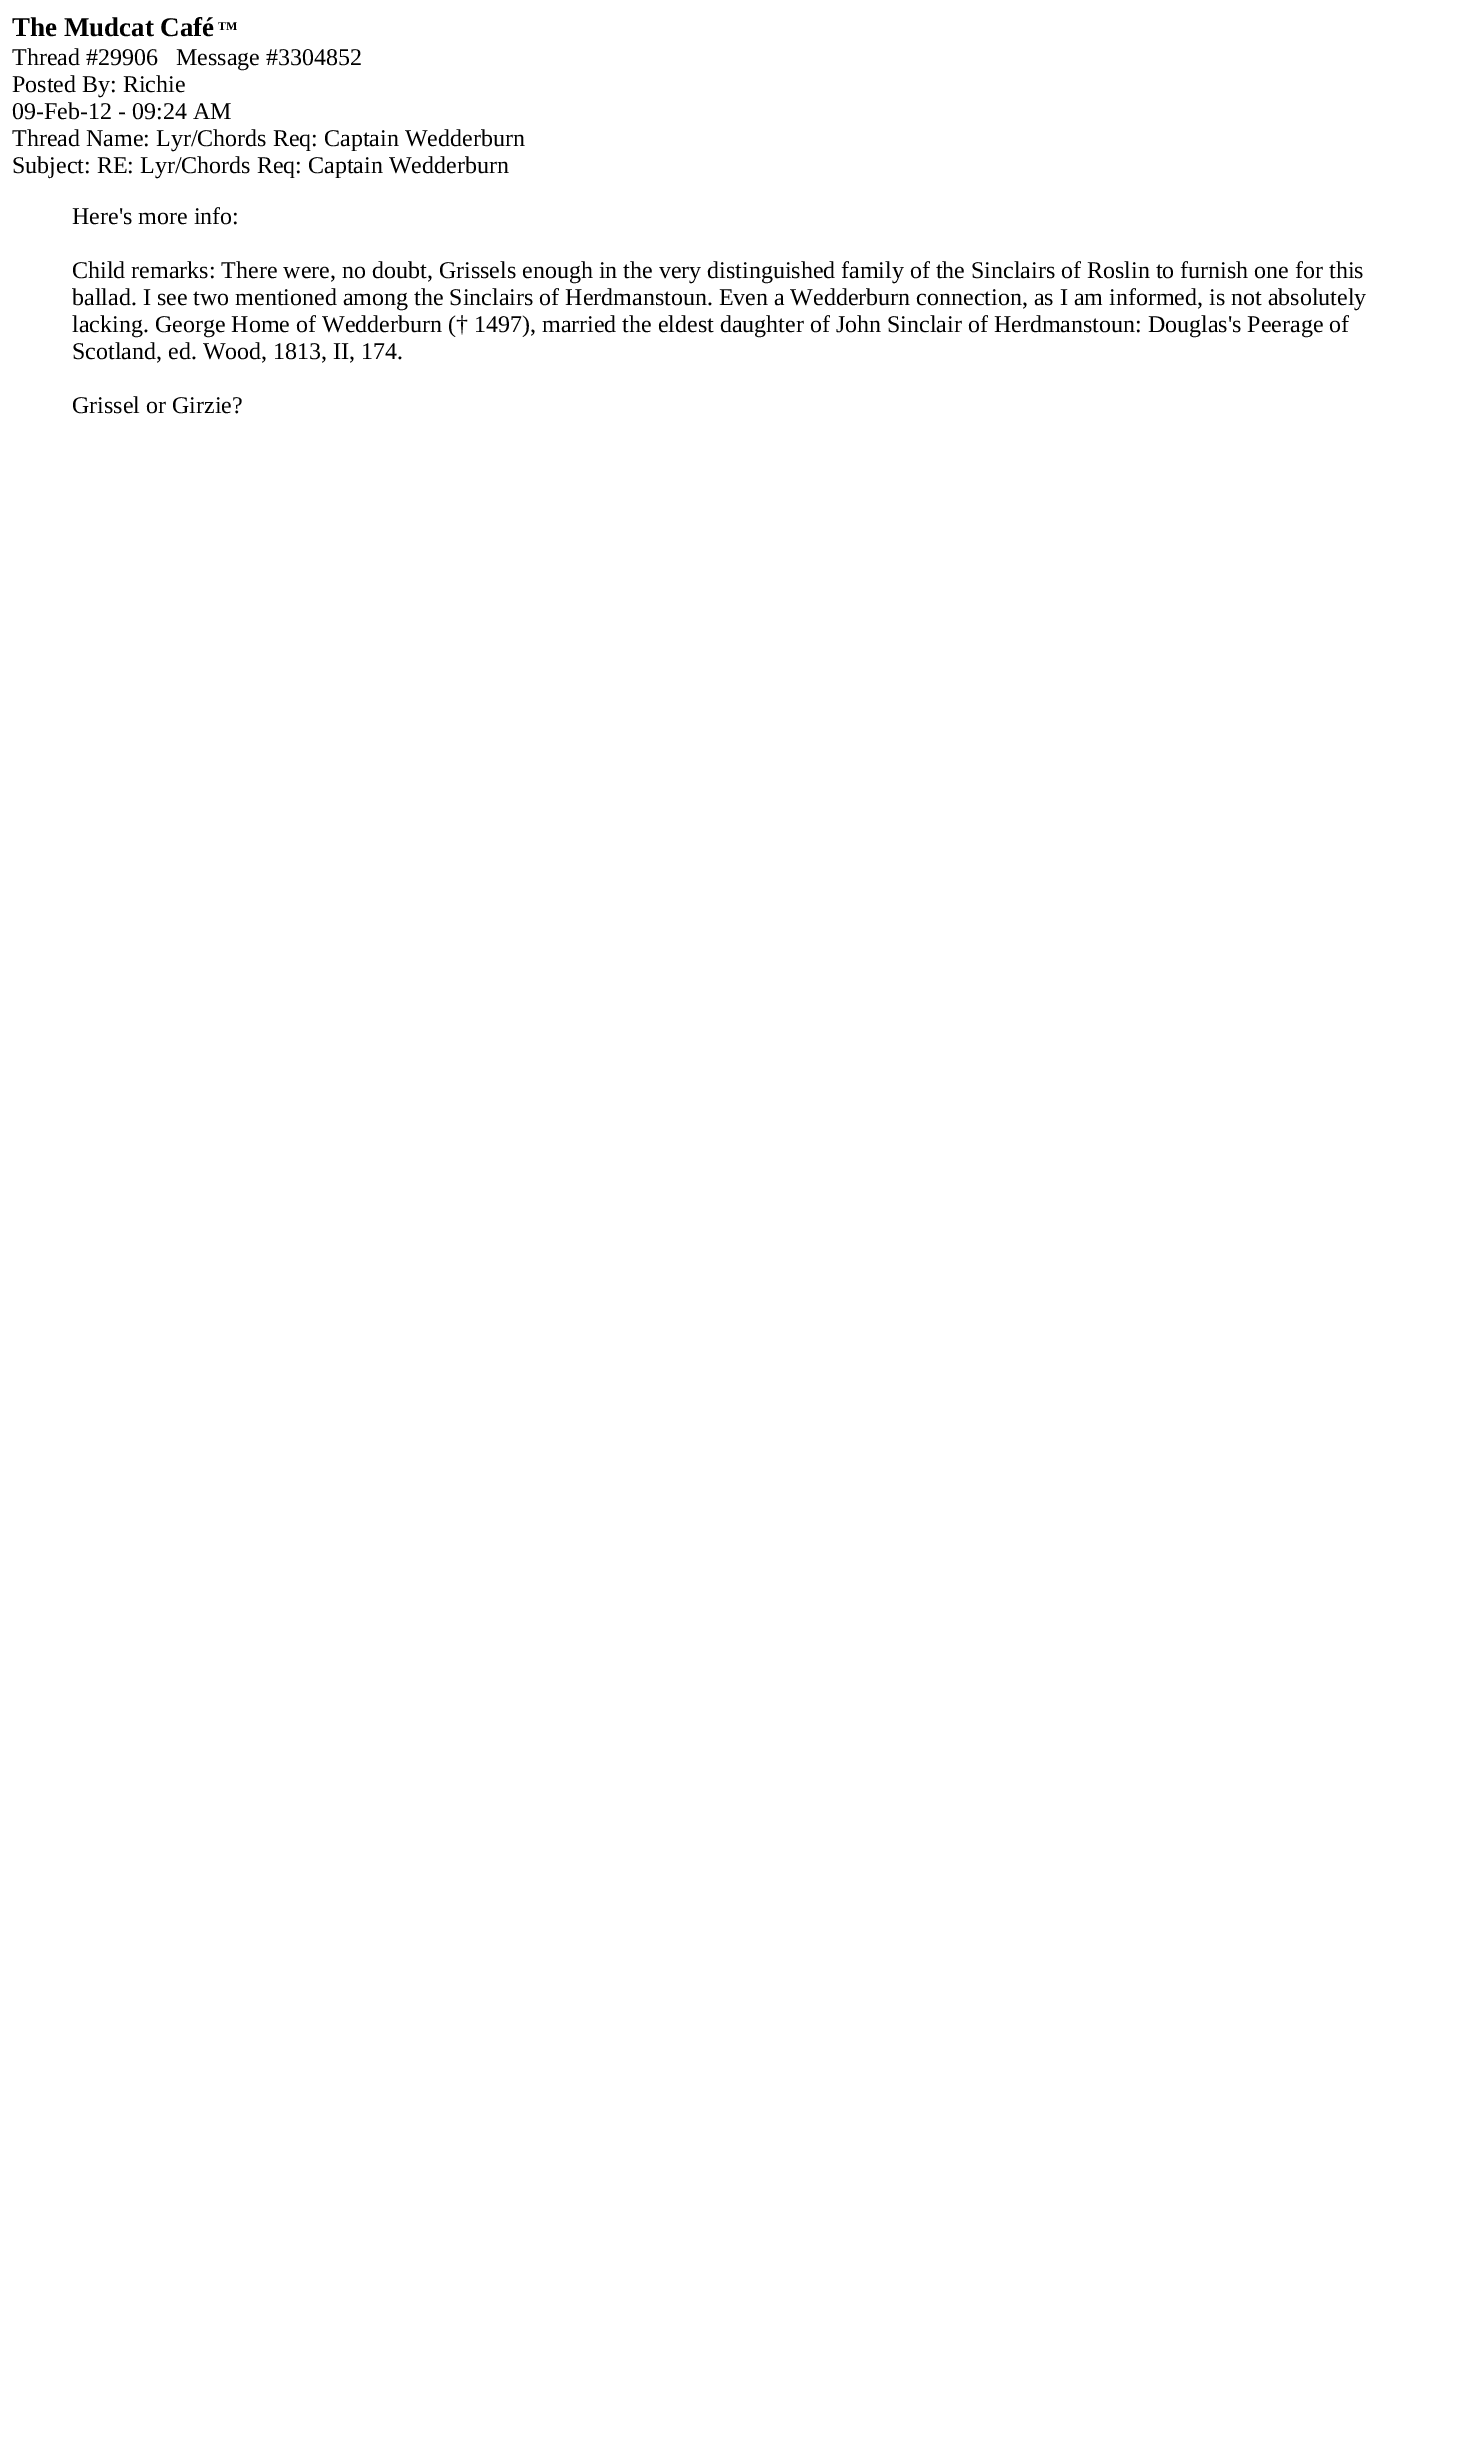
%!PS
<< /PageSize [1460 2458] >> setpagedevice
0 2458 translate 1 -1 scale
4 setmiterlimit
1 setgray
0 0 1460 2458 rectfill
/LiberationSerif-Bold [27 0 0 -27 0 0] selectfont
0 setgray
12 36 moveto (The Mudcat Café) show
/LiberationSerif-Bold [12 0 0 -12 0 0] selectfont
218 30 moveto (TM) show
/LiberationSerif-Regular [24 0 0 -24 0 0] selectfont
12 65 moveto (Thread #29906   Message #3304852) show
12 92 moveto (Posted By: Richie) show
12 119 moveto (09-Feb-12 - 09:24 AM) show
12 146 moveto (Thread Name: Lyr/Chords Req: Captain Wedderburn) show
12 173 moveto (Subject: RE: Lyr/Chords Req: Captain Wedderburn) show
72 224 moveto (Here's more info:) show
72 278 moveto (Child remarks: There were, no doubt, Grissels enough in the very distinguished family of the Sinclairs of Roslin to furnish one for this) show
72 305 moveto (ballad. I see two mentioned among the Sinclairs of Herdmanstoun. Even a Wedderburn connection, as I am informed, is not absolutely) show
72 332 moveto (lacking. George Home of Wedderburn \(† 1497\), married the eldest daughter of John Sinclair of Herdmanstoun: Douglas's Peerage of) show
72 359 moveto (Scotland, ed. Wood, 1813, II, 174.) show
72 413 moveto (Grissel or Girzie?) show
showpage
